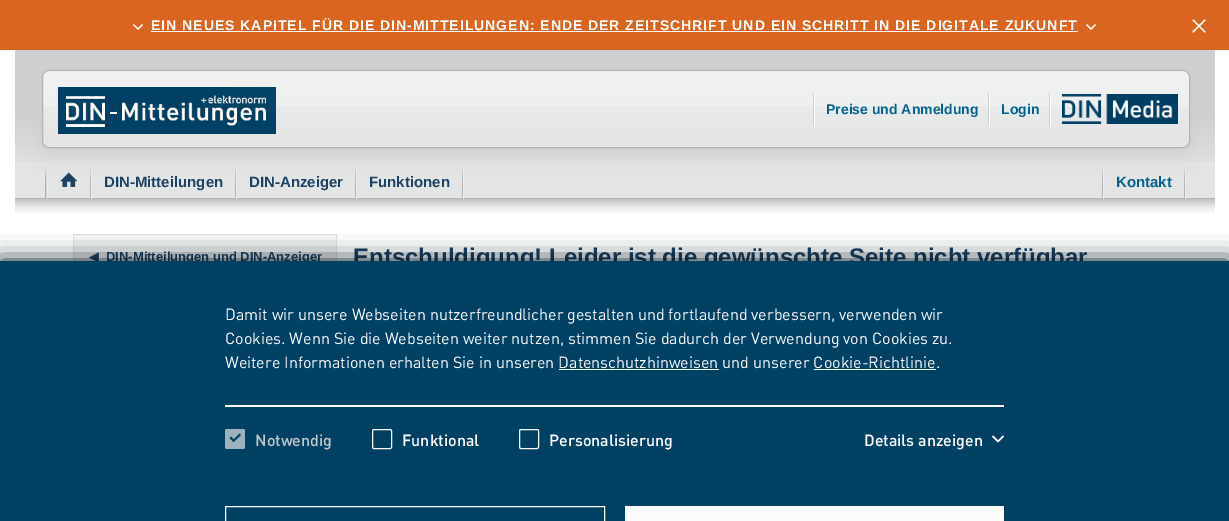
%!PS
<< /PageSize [1229 521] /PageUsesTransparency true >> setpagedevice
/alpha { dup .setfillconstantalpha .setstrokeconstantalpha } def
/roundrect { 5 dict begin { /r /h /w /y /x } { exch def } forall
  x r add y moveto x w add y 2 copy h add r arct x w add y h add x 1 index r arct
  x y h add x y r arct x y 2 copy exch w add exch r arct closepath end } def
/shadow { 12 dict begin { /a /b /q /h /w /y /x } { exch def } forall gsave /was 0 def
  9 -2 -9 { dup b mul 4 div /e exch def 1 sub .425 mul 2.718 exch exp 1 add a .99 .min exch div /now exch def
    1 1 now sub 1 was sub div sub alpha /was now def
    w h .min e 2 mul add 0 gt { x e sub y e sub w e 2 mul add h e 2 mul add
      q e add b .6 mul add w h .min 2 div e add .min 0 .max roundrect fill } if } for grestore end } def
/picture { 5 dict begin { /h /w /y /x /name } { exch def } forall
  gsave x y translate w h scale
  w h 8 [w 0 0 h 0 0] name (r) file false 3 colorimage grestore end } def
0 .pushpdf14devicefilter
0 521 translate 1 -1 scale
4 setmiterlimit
1 setgray
0 0 1229 521 rectfill
0.855 0.396 0.129 setrgbcolor
0 0 1229 50 rectfill
(img1.rgb) 133 24 10 6 picture
/LiberationSans-Bold [14 0 0 -14 0 0] selectfont
1 setgray
151 30 moveto 1 0 (EIN NEUES KAPITEL FÜR DIE DIN-MITTEILUNGEN: ENDE DER ZEITSCHRIFT UND EIN SCHRITT IN DIE DIGITALE ZUKUNFT) ashow
151 31 927 1 rectfill
(img1.rgb) 1086 24 10 6 picture
(img2.rgb) 1192 19 14 14 picture
(img3.rgb) 15 199 1200 14 picture
0.89 0.894 0.894 setrgbcolor
15 162 1200 36 rectfill
(img4.rgb) 15 50 1200 112 picture
0.694 0.702 0.706 setrgbcolor
15 198 1200 1 rectfill
(img8.rgb) 45 166 3 33 picture
(img11.rgb) 1102 166 2 33 picture
0.804 setgray
42 74 1148 78 7 10 1 shadow
0.89 0.894 0.894 setrgbcolor
42 70 1148 78 7 roundrect fill
(img5.rgb) 42 71 1148 73 picture
0.694 0.702 0.706 setrgbcolor
42.5 70.5 1147 77 6.5 roundrect stroke
(img6.rgb) 58 87 218 47 picture
0.804 0.812 0.816 setrgbcolor
813 93 1 33 rectfill
1 setgray
814 93 1 33 rectfill
0 0.384 0.553 setrgbcolor
826 114 moveto (Preise und Anmeldung) show
0.804 0.812 0.816 setrgbcolor
988 93 1 33 rectfill
1 setgray
989 93 1 33 rectfill
0 0.384 0.553 setrgbcolor
1001 114 moveto (Login) show
0.804 0.812 0.816 setrgbcolor
1049 93 1 33 rectfill
1 setgray
1050 93 1 33 rectfill
(img7.rgb) 1062 94 116 30 picture
(img9.rgb) 90 166 2 33 picture
0.694 0.702 0.706 setrgbcolor
47 198 1 1 rectfill
(img10.rgb) 60 172 18 15 picture
(img9.rgb) 235 166 2 33 picture
/LiberationSans-Bold [15 0 0 -15 0 0] selectfont
0.106 0.255 0.388 setrgbcolor
104 187 moveto (DIN-Mitteilungen) show
(img9.rgb) 355 166 2 33 picture
249 187 moveto (DIN-Anzeiger) show
(img9.rgb) 462 166 2 33 picture
369 187 moveto (Funktionen) show
(img12.rgb) 1184 166 2 33 picture
0 0.384 0.553 setrgbcolor
1116 187 moveto (Kontakt) show
0.933 0.937 0.937 setrgbcolor
74 241 262 20 rectfill
(img13.rgb) 74 235 262 6 picture
0.89 0.894 0.894 setrgbcolor
73.5 234.5 263 45 rectstroke
(img14.rgb) 89 252 11 9 picture
/LiberationSans-Bold [13 0 0 -13 0 0] selectfont
0.106 0.255 0.388 setrgbcolor
106 261 moveto (DIN-Mitteilungen und DIN-Anzeiger) show
/LiberationSans-Bold [24 0 0 -24 0 0] selectfont
353 265 moveto (Entschuldigung! Leider ist die gewünschte Seite nicht verfügbar) show
0 0.063 0.098 setrgbcolor
0 261 1229 260 0 12 1 shadow
0 0.255 0.392 setrgbcolor
0 261 1229 260 rectfill
/DIN-Regular [16 0 0 -16 0 0] selectfont
1 setgray
225 320 moveto (Damit wir unsere Webseiten nutzerfreundlicher gestalten und fortlaufend verbessern, verwenden wir) show
225 344 moveto (Cookies. Wenn Sie die Webseiten weiter nutzen, stimmen Sie dadurch der Verwendung von Cookies zu.) show
225 368 moveto (Weitere Informationen erhalten Sie in unseren Datenschutzhinweisen und unserer Cookie-Richtlinie.) show
0.98 0.984 0.988 setrgbcolor
559 369 160 1 rectfill
814 369 122 1 rectfill
225 405 779 2 rectfill
0.616 0.698 0.741 setrgbcolor
225 429 20 20 2 roundrect fill
0 0.255 0.392 setrgbcolor
newpath 239.5 433.5 moveto 241 435 lineto 233.5 442 lineto 232.5 440.5 lineto closepath fill
newpath 231 436.5 moveto 235 440.5 lineto 233.5 442 lineto 229.5 438 lineto closepath fill
/DIN-Medium [16 0 0 -16 0 0] selectfont
0.761 0.773 0.784 setrgbcolor
255 446 moveto (Notwendig) show
0.98 0.984 0.988 setrgbcolor
372.5 429.5 19 19 1.5 roundrect stroke
1 setgray
402 446 moveto (Funktional) show
0.98 0.984 0.988 setrgbcolor
519.5 429.5 19 19 1.5 roundrect stroke
1 setgray
549 446 moveto (Personalisierung) show
864 446 moveto (Details anzeigen) show
(img15.rgb) 992 435 12 8 picture
0.98 0.984 0.988 setrgbcolor
225.5 506.5 379 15 rectstroke
625 506 379 15 rectfill
.poppdf14devicefilter showpage
